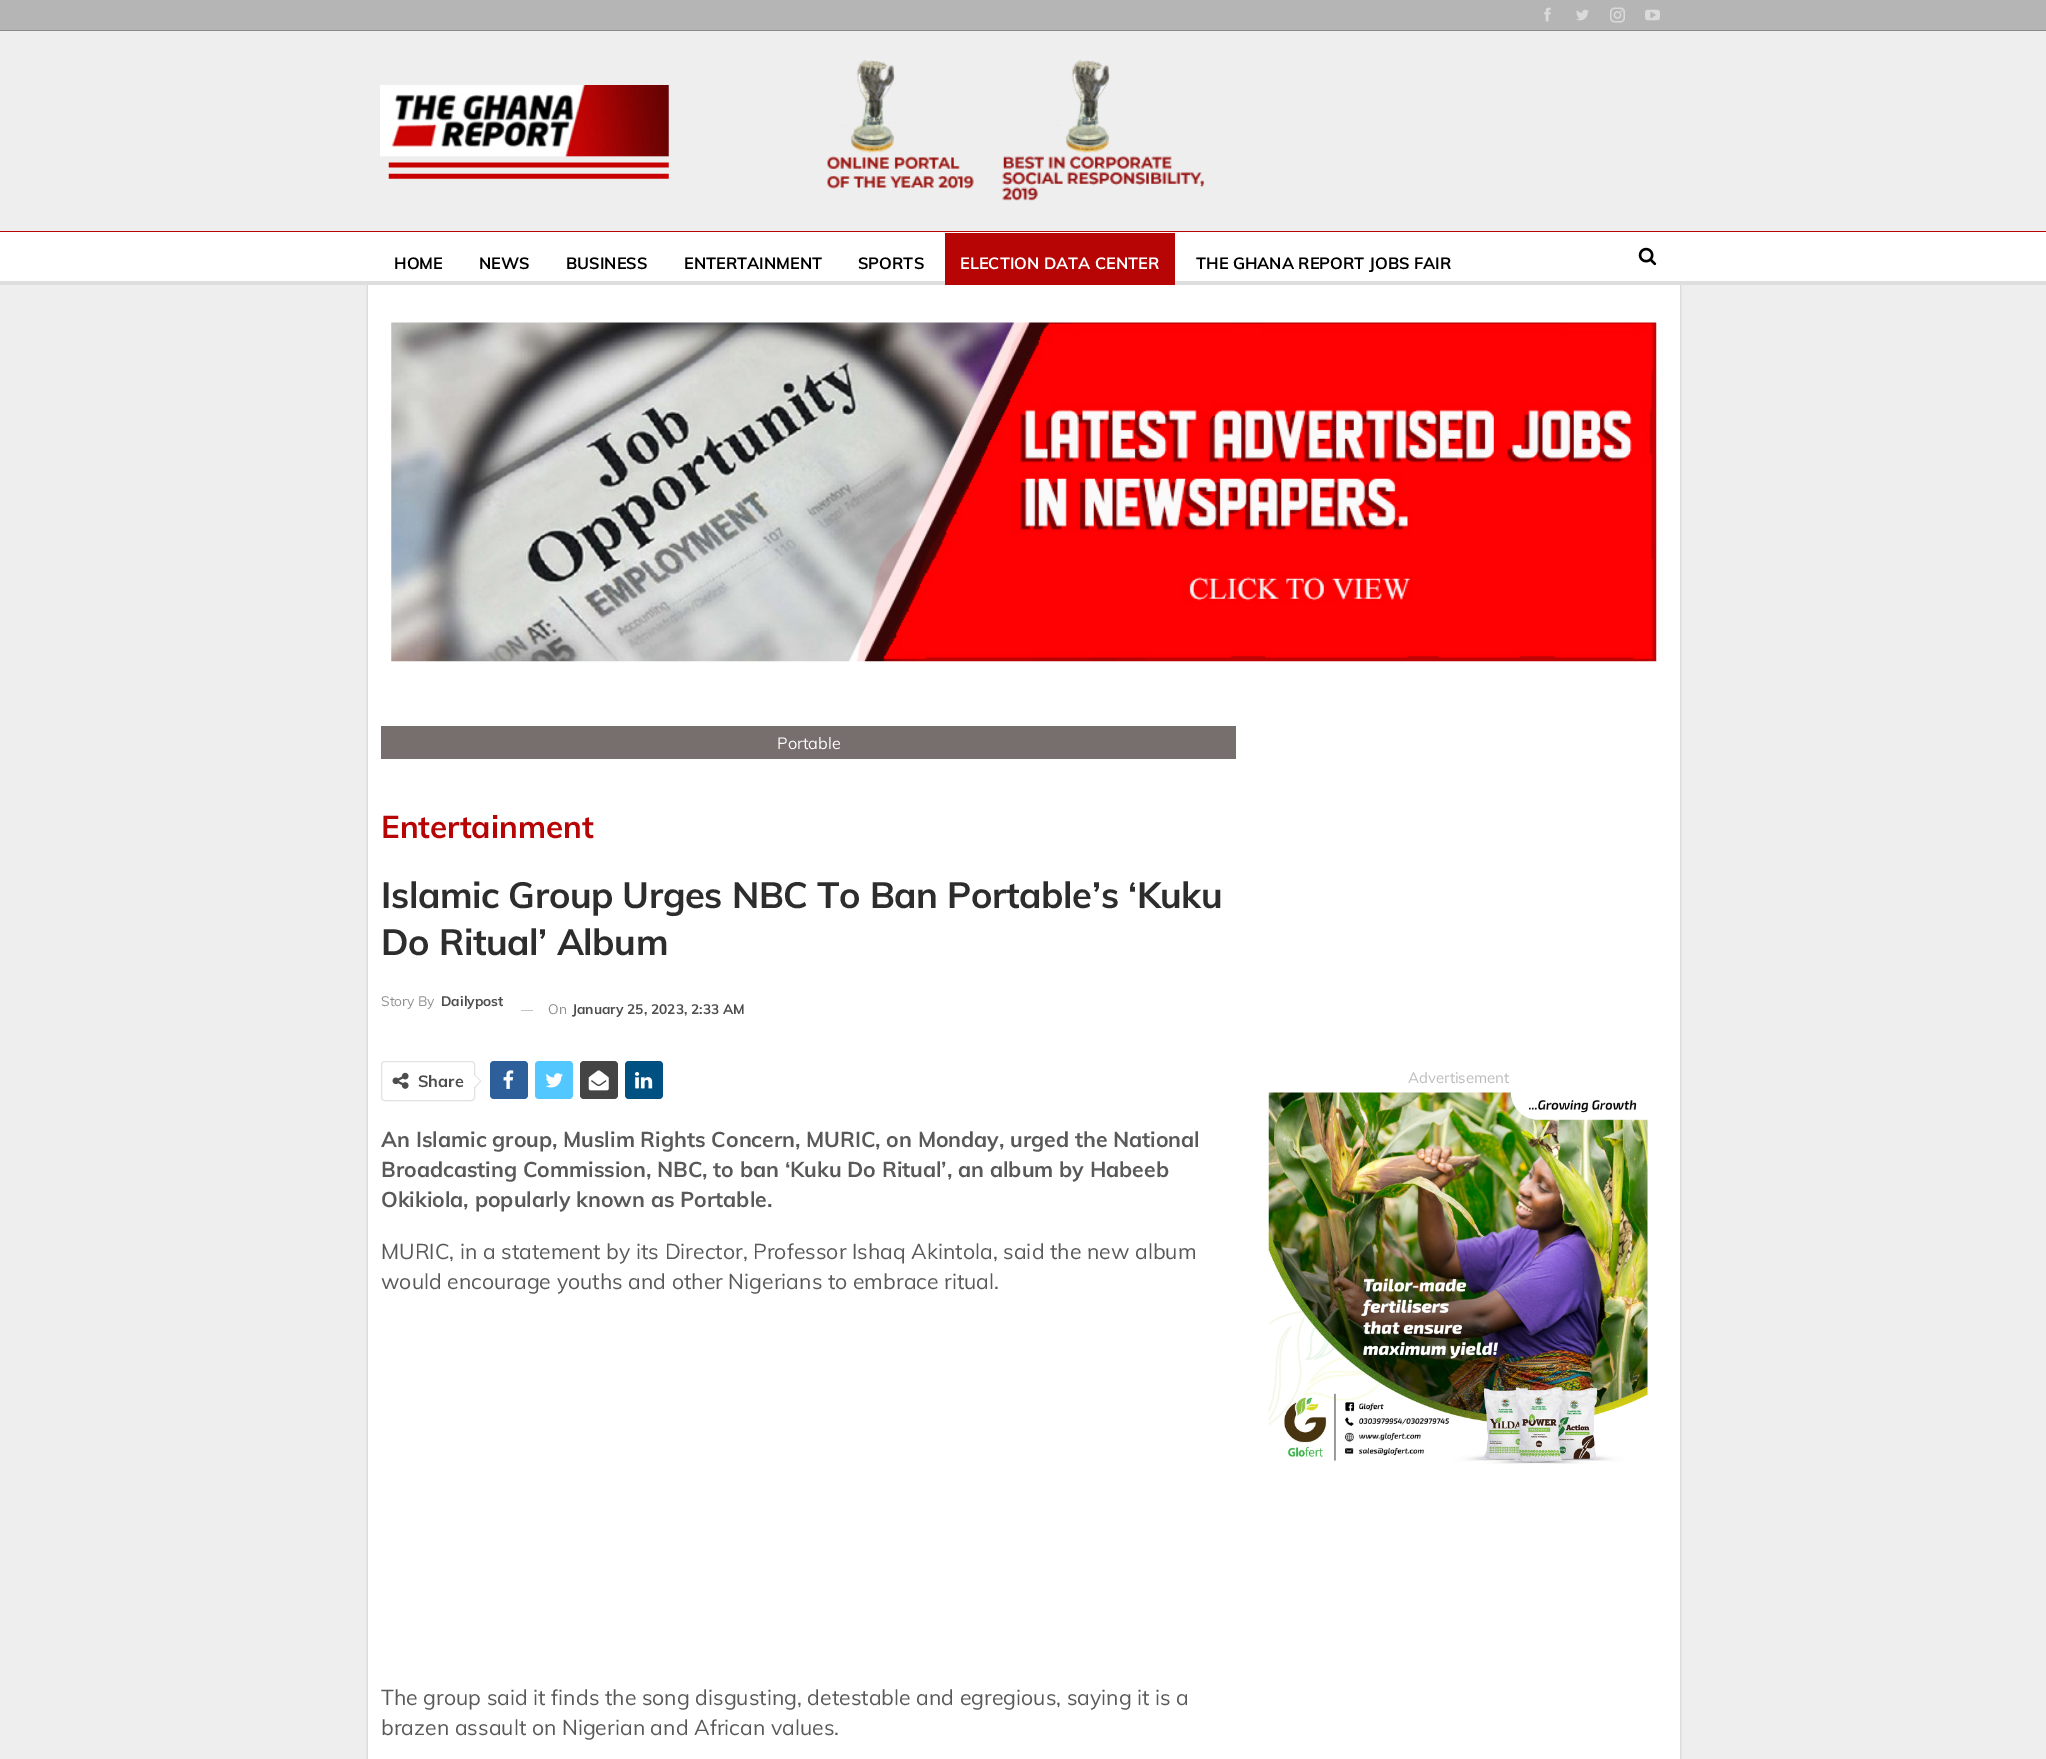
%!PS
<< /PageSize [2046 1759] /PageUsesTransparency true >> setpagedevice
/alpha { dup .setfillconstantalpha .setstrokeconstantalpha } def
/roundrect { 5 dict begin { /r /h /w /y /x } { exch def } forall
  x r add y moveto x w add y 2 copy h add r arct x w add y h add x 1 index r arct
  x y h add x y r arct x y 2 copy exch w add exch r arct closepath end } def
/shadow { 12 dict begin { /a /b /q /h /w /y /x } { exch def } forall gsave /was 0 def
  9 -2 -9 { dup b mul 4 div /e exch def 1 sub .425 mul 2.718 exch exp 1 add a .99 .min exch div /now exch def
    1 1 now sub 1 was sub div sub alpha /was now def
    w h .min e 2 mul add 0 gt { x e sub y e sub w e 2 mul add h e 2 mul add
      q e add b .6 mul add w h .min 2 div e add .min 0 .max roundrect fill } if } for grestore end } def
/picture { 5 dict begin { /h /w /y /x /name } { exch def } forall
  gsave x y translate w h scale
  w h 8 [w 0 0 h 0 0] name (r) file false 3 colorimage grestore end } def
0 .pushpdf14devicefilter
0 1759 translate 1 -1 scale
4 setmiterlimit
0.933 setgray
0 0 2046 1759 rectfill
0.71 setgray
0 0 2046 30 rectfill
0.541 setgray
0 30 2046 1 rectfill
(img1.rgb) 1544 7 7 15 picture
(img2.rgb) 1576 9 13 12 picture
(img3.rgb) 1610 7 15 16 picture
(img4.rgb) 1645 9 15 12 picture
(img5.rgb) 380 85 289 94 picture
(img6.rgb) 827 60 377 141 picture
1 setgray
0 232 2046 49 rectfill
0.718 0.016 0.02 setrgbcolor
0 231 2046 1 rectfill
0 setgray
368 285 1312 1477 0 1 0.27 shadow
0.871 setgray
0 281 2046 4 rectfill
/Muli-Bold [16.25 0 0 -16.25 0 0] selectfont
0 setgray
394 269 moveto (HOME) show
479 269 moveto (NEWS) show
566 269 moveto (BUSINESS) show
684 269 moveto (ENTERTAINMENT) show
858 269 moveto (SPORTS) show
0.718 0.016 0.02 setrgbcolor
945 233 230 52 rectfill
1 setgray
960 269 moveto (ELECTION DATA CENTER) show
0 setgray
1196 269 moveto (THE GHANA REPORT JOBS FAIR) show
(img7.rgb) 1638 247 19 19 picture
1 setgray
368 285 1312 1474 rectfill
(img8.rgb) 391 322 1266 340 picture
0.467 0.431 0.431 setrgbcolor
381 726 855 33 rectfill
/Muli-Regular [16.25 0 0 -16.25 0 0] selectfont
1 setgray
777 749 moveto (Portable) show
/Muli-Bold [31.25 0 0 -31.25 0 0] selectfont
0.718 0.016 0.02 setrgbcolor
381 838 moveto (Entertainment) show
/Muli-Bold [36.25 0 0 -36.25 0 0] selectfont
0.176 setgray
381 908 moveto -0.4 0 (Islamic Group Urges NBC To Ban Portable’s ‘Kuku) ashow
381 955 moveto -0.4 0 (Do Ritual’ Album) ashow
/Muli-Regular [13.75 0 0 -13.75 0 0] selectfont
0.561 setgray
381 1006 moveto (Story By) show
/Muli-Bold [13.75 0 0 -13.75 0 0] selectfont
0.302 setgray
441 1006 moveto (Dailypost) show
0.769 setgray
521 1010 12 1 rectfill
/Muli-Regular [13.75 0 0 -13.75 0 0] selectfont
0.561 setgray
548 1014 moveto (On) show
/Muli-Bold [13.75 0 0 -13.75 0 0] selectfont
0.302 setgray
572 1014 moveto (January 25, 2023, 2:33 AM) show
0.886 setgray
381.5 1061.5 93 39 3.5 roundrect stroke
(img9.rgb) 392 1072 17 17 picture
/Muli-Bold [16.25 0 0 -16.25 0 0] selectfont
0.302 setgray
418 1087 moveto (Share) show
0.843 setgray
newpath 474 1089 moveto 474 1074 lineto 481 1081 lineto closepath fill
1 setgray
newpath 474 1087.5 moveto 474 1075 lineto 480 1081 lineto closepath fill
0.176 0.373 0.604 setrgbcolor
490 1061 38 38 4 roundrect fill
(img10.rgb) 503 1070 11 19 picture
0.325 0.78 1 setrgbcolor
535 1061 38 38 4 roundrect fill
(img11.rgb) 545 1073 18 15 picture
0.267 setgray
580 1061 38 38 4 roundrect fill
(img12.rgb) 588 1070 21 21 picture
0 0.318 0.51 setrgbcolor
625 1061 38 38 4 roundrect fill
(img13.rgb) 635 1072 18 17 picture
/Muli-Bold [21.25 0 0 -21.25 0 0] selectfont
0.353 0.349 0.349 setrgbcolor
381 1147 moveto (An Islamic group, Muslim Rights Concern, MURIC, on Monday, urged the National) show
381 1177 moveto (Broadcasting Commission, NBC, to ban ‘Kuku Do Ritual’, an album by Habeeb) show
381 1207 moveto (Okikiola, popularly known as Portable.) show
/Muli-Regular [21.25 0 0 -21.25 0 0] selectfont
381 1259 moveto (MURIC, in a statement by its Director, Professor Ishaq Akintola, said the new album) show
381 1289 moveto (would encourage youths and other Nigerians to embrace ritual.) show
381 1705 moveto (The group said it finds the song disgusting, detestable and egregious, saying it is a) show
381 1735 moveto (brazen assault on Nigerian and African values.) show
/Muli-Regular [15 0 0 -15 0 0] selectfont
0.733 setgray
1408 1083 moveto (Advertisement) show
(img14.rgb) 1268 1092 380 372 picture
.poppdf14devicefilter showpage
